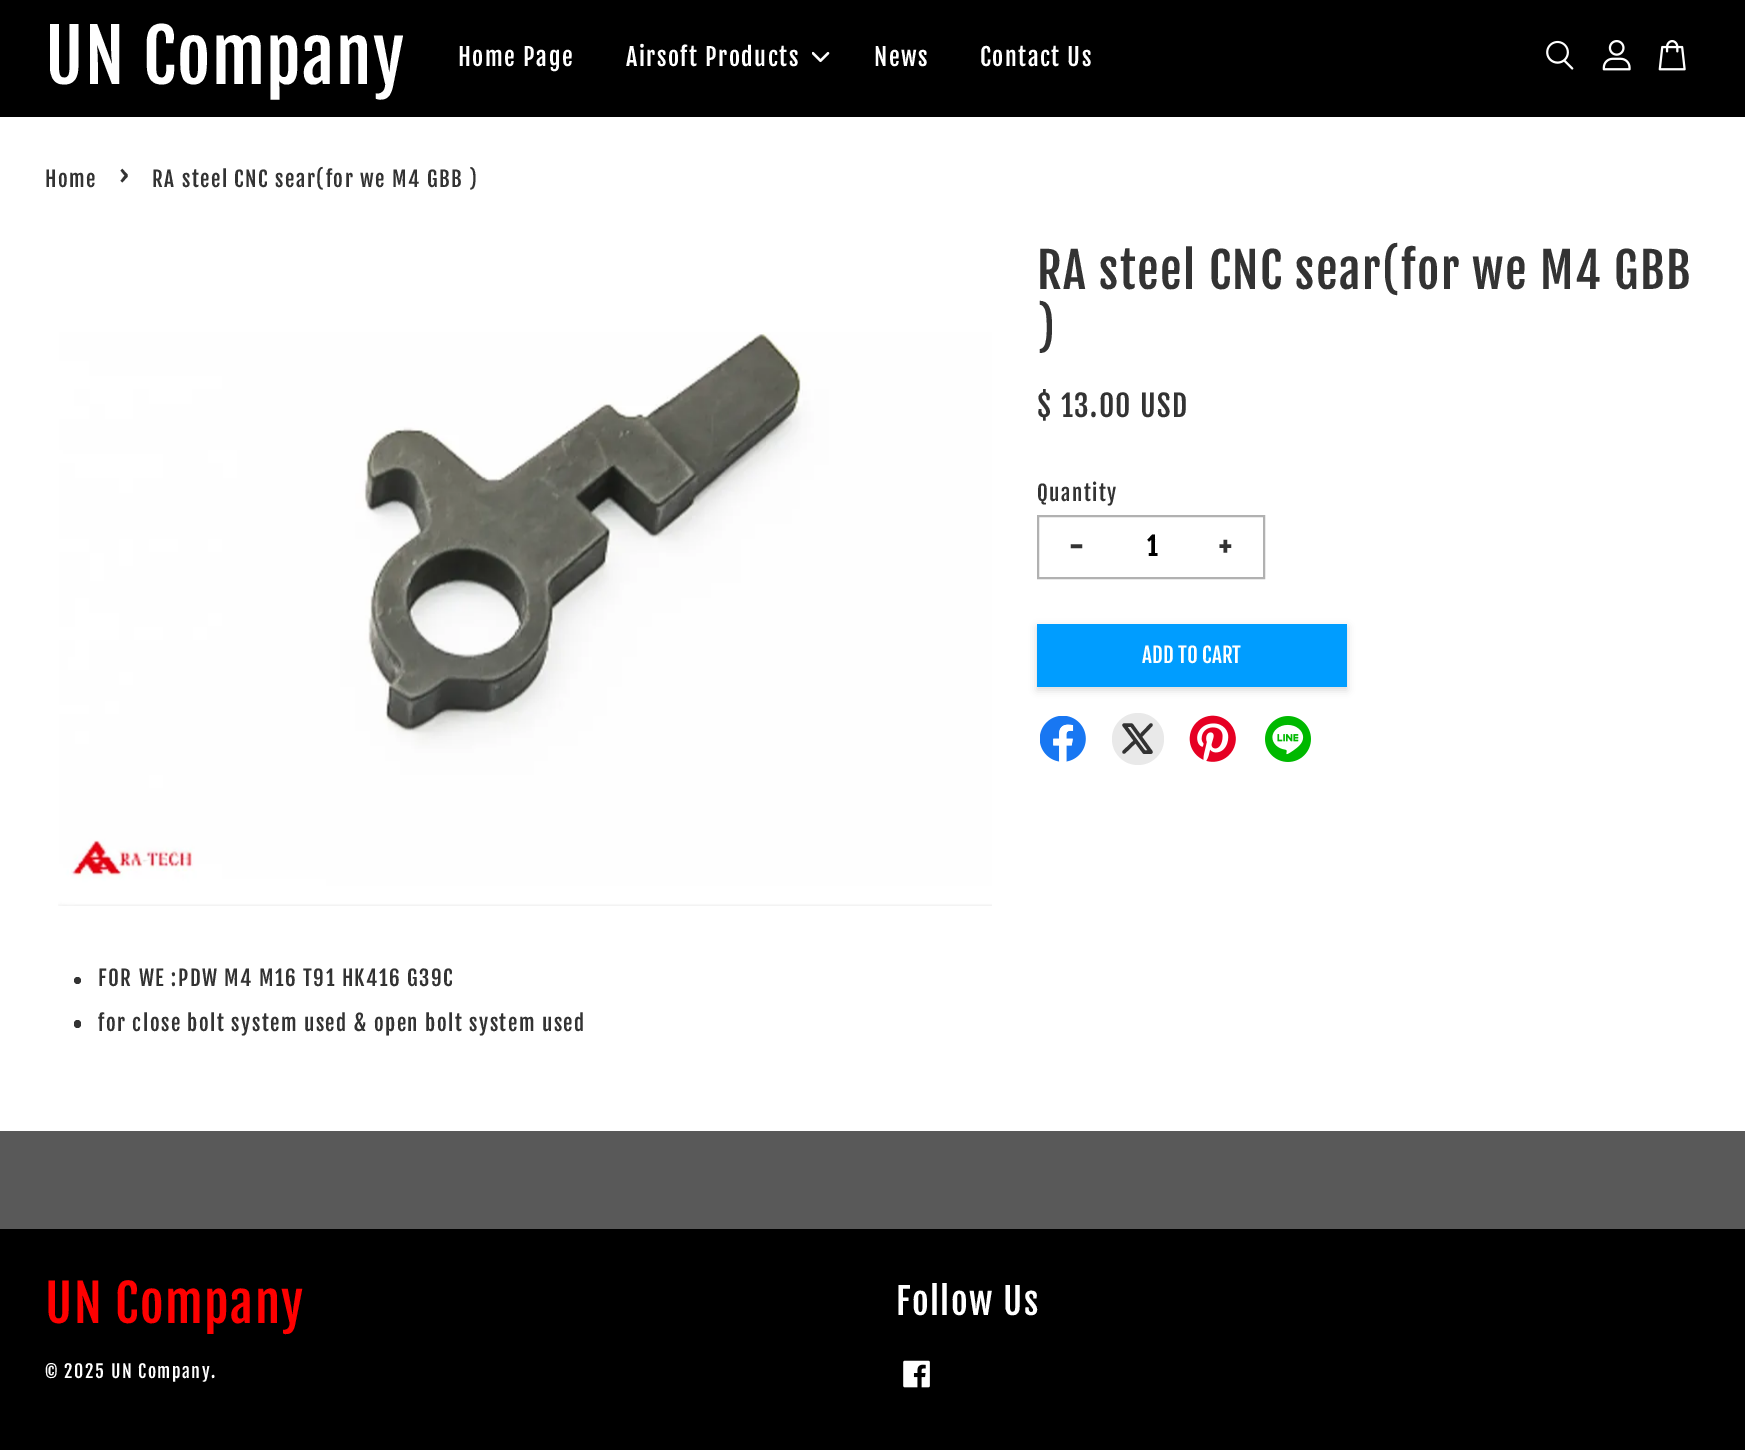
%!PS
<< /PageSize [1745 1450] /PageUsesTransparency true >> setpagedevice
/alpha { dup .setfillconstantalpha .setstrokeconstantalpha } def
/roundrect { 5 dict begin { /r /h /w /y /x } { exch def } forall
  x r add y moveto x w add y 2 copy h add r arct x w add y h add x 1 index r arct
  x y h add x y r arct x y 2 copy exch w add exch r arct closepath end } def
/shadow { 12 dict begin { /a /b /q /h /w /y /x } { exch def } forall gsave /was 0 def
  9 -2 -9 { dup b mul 4 div /e exch def 1 sub .425 mul 2.718 exch exp 1 add a .99 .min exch div /now exch def
    1 1 now sub 1 was sub div sub alpha /was now def
    w h .min e 2 mul add 0 gt { x e sub y e sub w e 2 mul add h e 2 mul add
      q e add b .6 mul add w h .min 2 div e add .min 0 .max roundrect fill } if } for grestore end } def
/picture { 5 dict begin { /h /w /y /x /name } { exch def } forall
  gsave x y translate w h scale
  w h 8 [w 0 0 h 0 0] name (r) file false 3 colorimage grestore end } def
0 .pushpdf14devicefilter
0 1450 translate 1 -1 scale
4 setmiterlimit
1 setgray
0 0 1745 1450 rectfill
0 setgray
0 0 1745 117 rectfill
/FjallaOne-Regular [72 0 0 -72 0 0] selectfont
1 setgray
45 84 moveto 1.5 0 (UN Company) ashow
/FjallaOne-Regular [24 0 0 -24 0 0] selectfont
458 66 moveto 1.5 0 (Home Page) ashow
626 66 moveto 1.5 0 (Airsoft Products) ashow
(img1.rgb) 812 51 18 12 picture
874 66 moveto 1.5 0 (News) ashow
980 66 moveto 1.5 0 (Contact Us) ashow
(img2.rgb) 1546 40 28 30 picture
(img3.rgb) 1602 40 29 31 picture
(img4.rgb) 1658 40 28 31 picture
/FjallaOne-Regular [21 0 0 -21 0 0] selectfont
0.2 setgray
45 187 moveto 1.5 0 (Home) ashow
/FjallaOne-Regular [29.5 0 0 -29.5 0 0] selectfont
118 187 moveto 1.5 0 (›) ashow
/FjallaOne-Regular [21 0 0 -21 0 0] selectfont
152 187 moveto 1.5 0 (RA steel CNC sear\(for we M4 GBB \)) ashow
(img5.rgb) 58 332 934 574 picture
/FjallaOne-Regular [48.25 0 0 -48.25 0 0] selectfont
1037 289 moveto 1.5 0 (RA steel CNC sear\(for we M4 GBB) ashow
1037 347 moveto 1.5 0 (\)) ashow
/FjallaOne-Regular [29.5 0 0 -29.5 0 0] selectfont
1037 417 moveto 1.5 0 ($ 13.00 USD) ashow
/FjallaOne-Regular [21 0 0 -21 0 0] selectfont
1037 501 moveto 1.5 0 (Quantity) ashow
0.694 setgray
2 setlinewidth
1038 516 226 62 rectstroke
/FjallaOne-Bold [29.5 0 0 -29.5 0 0] selectfont
0.2 setgray
1069 558 moveto 1.5 0 (-) ashow
/FjallaOne-Bold [25 0 0 -25 0 0] selectfont
0 setgray
1147 556 moveto (1) show
/FjallaOne-Bold [29.5 0 0 -29.5 0 0] selectfont
0.2 setgray
1219 558 moveto 1.5 0 (+) ashow
0 setgray
1037 627 310 63 0 4 0.15 shadow
0 0.616 1 setrgbcolor
1037 624 310 63 rectfill
/FjallaOne-Regular [21 0 0 -21 0 0] selectfont
1 setgray
1142 663 moveto (ADD TO CART) show
(img6.rgb) 1040 716 46 46 picture
0.914 setgray
newpath 1138 739 26 0 360 arc closepath fill
0.2 setgray
3.4 setlinewidth
1 setlinecap
1 setlinejoin
newpath 1124 725 moveto 1144 752 lineto 1151 752 lineto 1131.5 725 lineto closepath 1124 752 moveto 1135.5 741 lineto 1140 736.5 moveto 1151 725 lineto stroke
(img7.rgb) 1189 715 47 47 picture
(img8.rgb) 1265 716 46 46 picture
newpath 77.5 980.5 3.5 0 360 arc closepath fill
98 986 moveto 1.5 0 (FOR WE :PDW M4 M16 T91 HK416 G39C) ashow
74 1020 7 8 3.5 roundrect fill
98 1031 moveto 1.5 0 (for close bolt system used & open bolt system used) ashow
0 setgray
0 1229 1745 221 rectfill
0.349 setgray
0 1131 1745 98 rectfill
/FjallaOne-Regular [51 0 0 -51 0 0] selectfont
0.996 0 0 setrgbcolor
45 1323 moveto 1.5 0 (UN Company) ashow
/FjallaOne-Regular [17.75 0 0 -17.75 0 0] selectfont
1 setgray
45 1378 moveto 1.5 0 (© 2025 UN Company.) ashow
/FjallaOne-Regular [36 0 0 -36 0 0] selectfont
896 1315 moveto 1.5 0 (Follow Us) ashow
(img9.rgb) 903 1360 27 28 picture
.poppdf14devicefilter showpage
